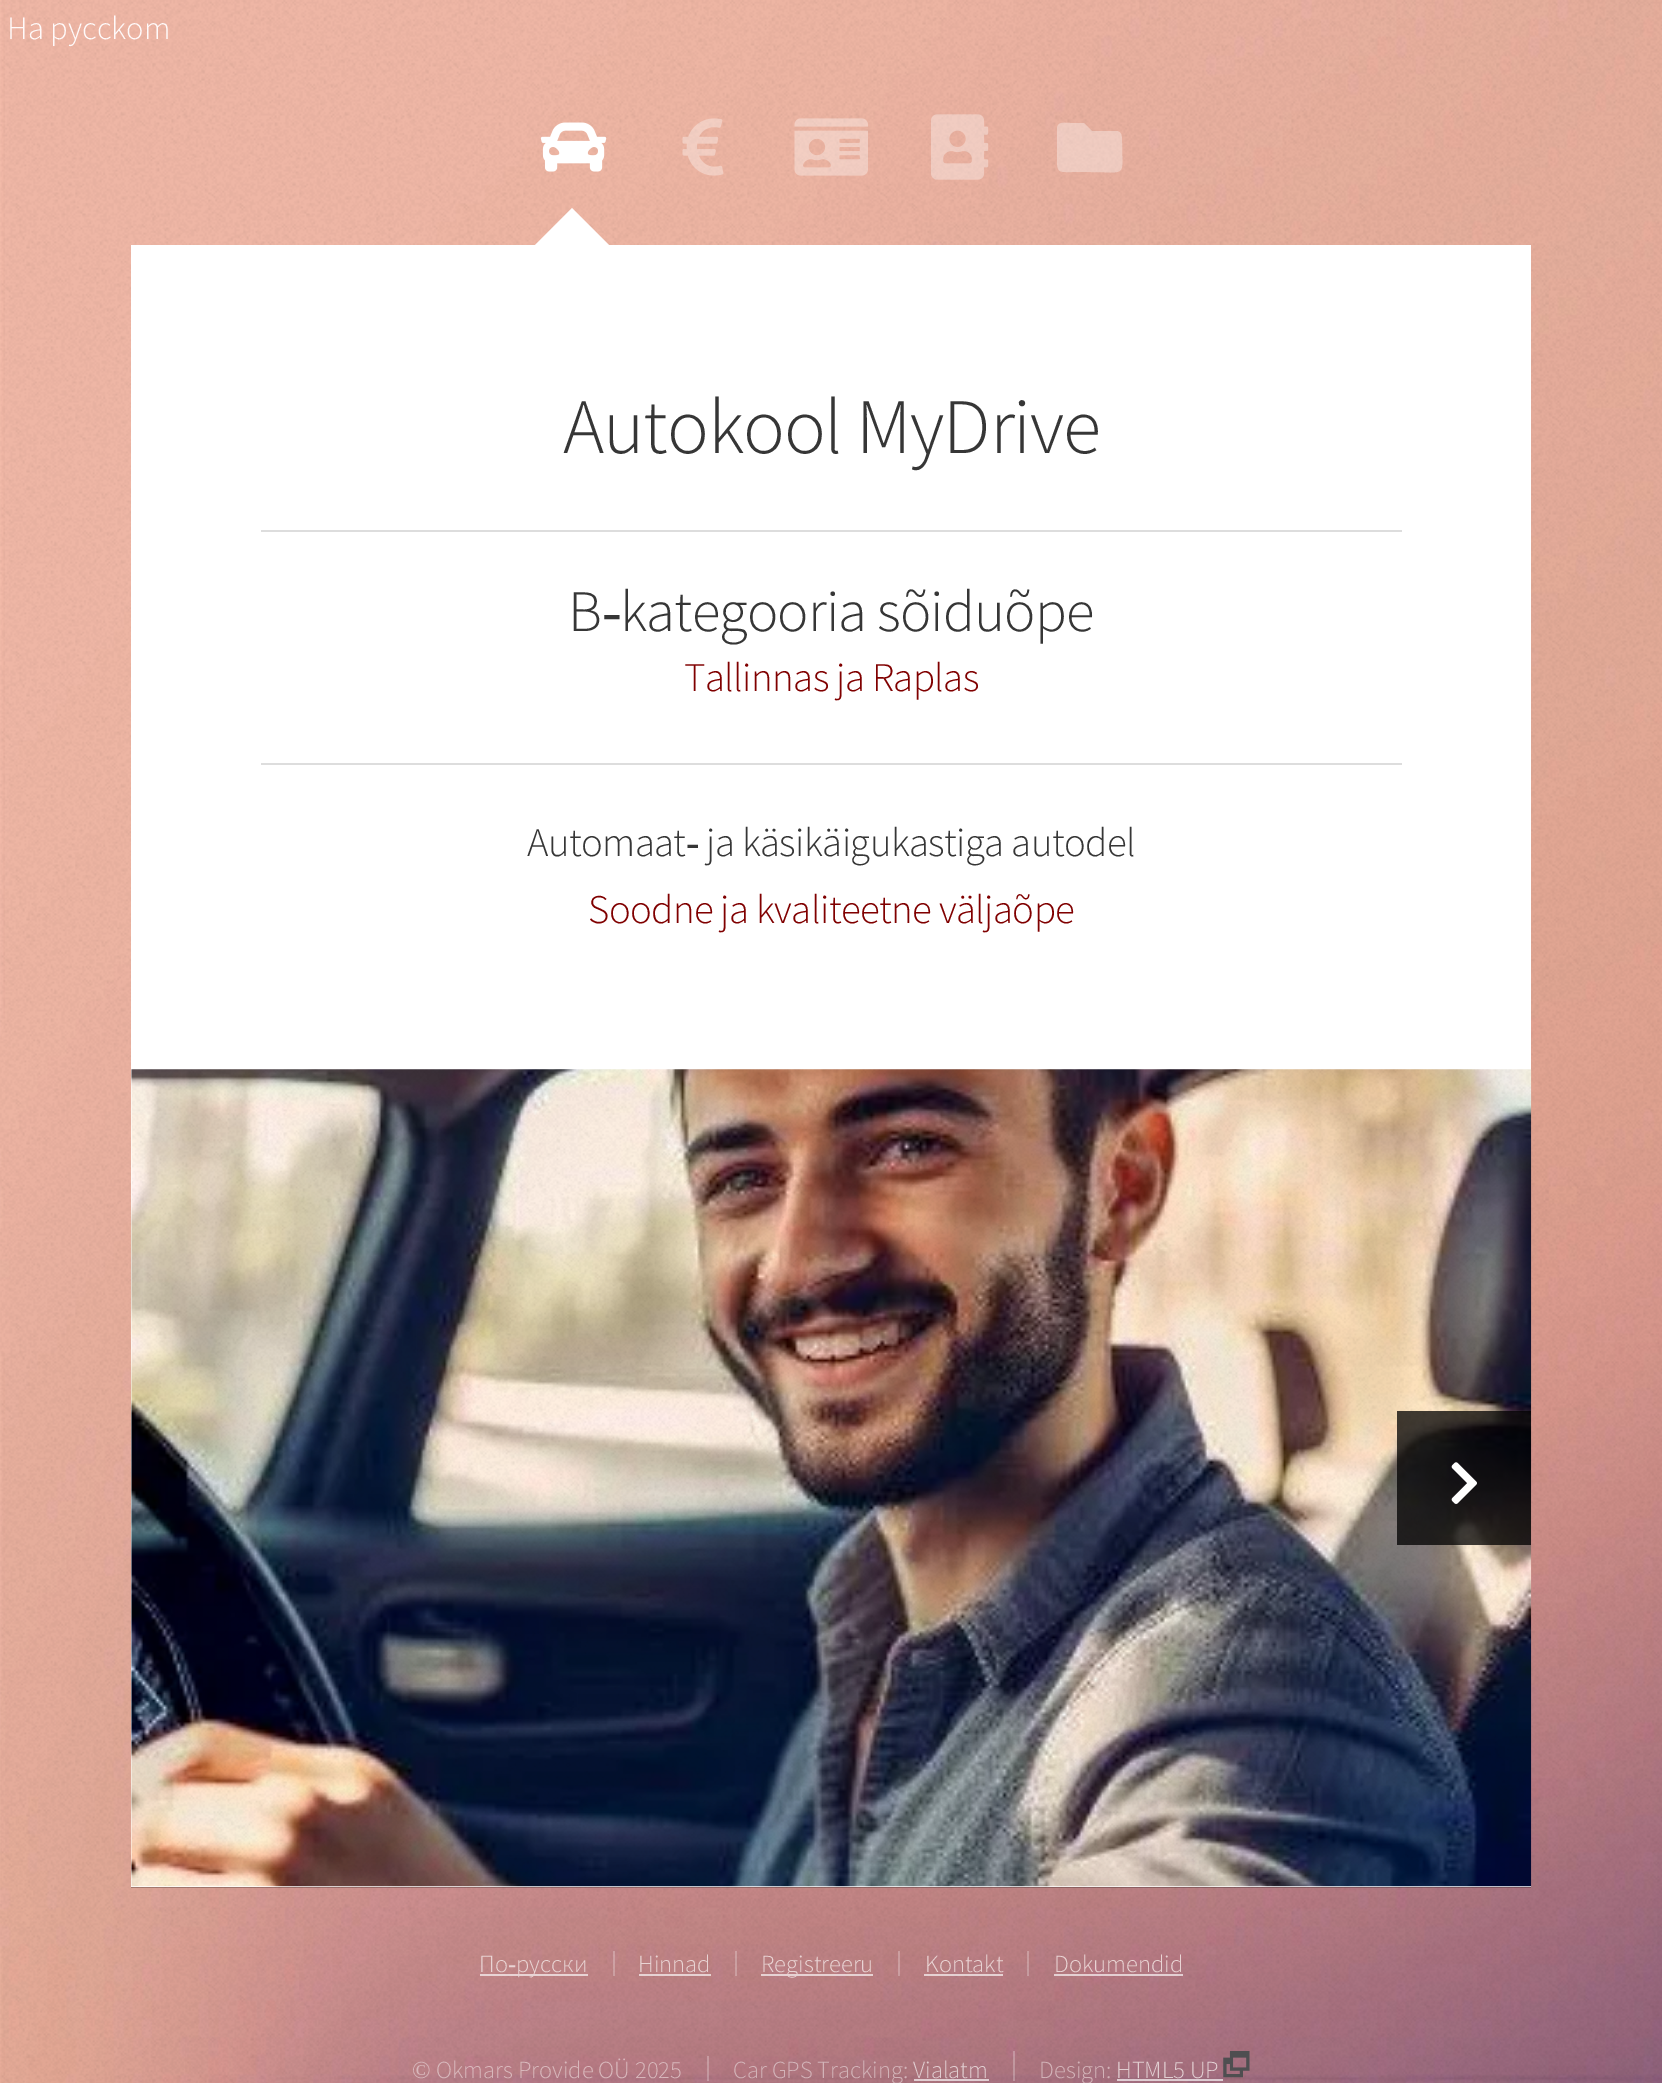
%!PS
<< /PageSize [1662 2083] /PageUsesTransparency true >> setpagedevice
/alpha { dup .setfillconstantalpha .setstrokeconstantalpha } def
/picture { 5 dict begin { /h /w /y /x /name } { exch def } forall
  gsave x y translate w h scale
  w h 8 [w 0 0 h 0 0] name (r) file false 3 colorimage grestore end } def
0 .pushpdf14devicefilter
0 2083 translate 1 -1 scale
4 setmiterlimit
1 setgray
0 0 1662 2083 rectfill
(img1.rgb) 0 0 1662 2083 picture
/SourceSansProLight-Light [32.5 0 0 -32.5 0 0] selectfont
1 0.98 0.98 setrgbcolor
7 39 moveto (Ha pycckom) show
(img2.rgb) 540 122 67 50 picture
1 setgray
newpath 612 248 moveto 532 248 lineto 572 208 lineto closepath fill
(img3.rgb) 682 118 42 58 picture
(img4.rgb) 794 118 74 58 picture
(img5.rgb) 931 114 58 66 picture
0.35 alpha
newpath 1116 131 moveto 1122 131 1122 137 1122 142 curveto 1122 178 1128 172 1090 172 curveto 1072 172 lineto 1059 172 1057 173 1057 159 curveto 1057 128 lineto 1058 121 1065 123 1070 123 curveto 1084 123 lineto 1092 131 lineto closepath fill
0.25 alpha
0 setgray
newpath 131 247 moveto 131 1888 lineto 1531 1888 lineto 1531 1886 lineto 131 1886 lineto closepath fill
1 alpha
1 setgray
131 245 1400 1642 rectfill
/SourceSansProLight-Light [78.5 0 0 -78.5 0 0] selectfont
0.212 setgray
563 453 moveto -1.2 0 (Autokool MyDrive) ashow
0.867 setgray
261 530 1141 2 rectfill
/SourceSansProLight-Light [58.75 0 0 -58.75 0 0] selectfont
0.212 setgray
568 631 moveto -0.9 0 (B) ashow
/LiberationSerif-Regular [58.75 0 0 -58.75 0 0] selectfont
602 631 moveto -0.9 0 (-) ashow
/SourceSansProLight-Light [58.75 0 0 -58.75 0 0] selectfont
620 631 moveto -0.9 0 (kategooria sõiduõpe) ashow
/SourceSansProLight-Light [40.75 0 0 -40.75 0 0] selectfont
0.502 0 0 setrgbcolor
684 691 moveto -0.6 0 (Tallinnas ja Raplas) ashow
0.867 setgray
261 763 1141 2 rectfill
0.212 setgray
527 856 moveto -0.6 0 (Automaat) ashow
/LiberationSerif-Regular [40.75 0 0 -40.75 0 0] selectfont
686 856 moveto -0.6 0 (-) ashow
/SourceSansProLight-Light [40.75 0 0 -40.75 0 0] selectfont
706 856 moveto -0.6 0 (ja käsikäigukastiga autodel) ashow
0.502 0 0 setrgbcolor
588 923 moveto -0.6 0 (Soodne ja kvaliteetne väljaõpe) ashow
(img6.rgb) 131 1069 1401 818 picture
(img7.rgb) 132 1069 1399 817 picture
0.75 alpha
0 setgray
1397 1411 134 134 rectfill
1 alpha
(img8.rgb) 1451 1462 26 42 picture
/SourceSansProLight-Light [24.5 0 0 -24.5 0 0] selectfont
0.914 0.831 0.831 setrgbcolor
479 1972 moveto (По) show
/LiberationSerif-Regular [24.5 0 0 -24.5 0 0] selectfont
508 1972 moveto (-) show
0.65 alpha
1 setgray
480 1974 108 2 rectfill
/SourceSansProLight-Light [24.5 0 0 -24.5 0 0] selectfont
1 alpha
0.914 0.831 0.831 setrgbcolor
516 1972 moveto (русски) show
0.25 alpha
1 setgray
613 1951 2 25 rectfill
1 alpha
0.914 0.831 0.831 setrgbcolor
638 1972 moveto (Hinnad) show
0.65 alpha
1 setgray
639 1974 72 2 rectfill
0.25 alpha
735 1951 2 25 rectfill
0.65 alpha
761 1974 112 2 rectfill
1 alpha
0.914 0.831 0.831 setrgbcolor
761 1972 moveto (Registreeru) show
0.25 alpha
1 setgray
898 1951 2 25 rectfill
1 alpha
0.914 0.831 0.831 setrgbcolor
925 1972 moveto (Kontakt) show
0.65 alpha
1 setgray
924 1974 79 2 rectfill
0.25 alpha
1027 1951 2 25 rectfill
1 alpha
0.914 0.831 0.831 setrgbcolor
1054 1972 moveto (Dokumendid) show
0.65 alpha
1 setgray
1054 1974 129 2 rectfill
/LiberationSerif-Regular [24.5 0 0 -24.5 0 0] selectfont
1 alpha
0.847 0.722 0.737 setrgbcolor
412 2078 moveto (©) show
/SourceSansProLight-Light [24.5 0 0 -24.5 0 0] selectfont
436 2078 moveto (Okmars Provide OÜ 2025) show
0.25 alpha
1 setgray
707 2056 2 25 rectfill
1 alpha
0.824 0.702 0.722 setrgbcolor
733 2078 moveto (Car GPS Tracking:) show
0.882 0.808 0.82 setrgbcolor
913 2078 moveto (Vialatm) show
0.65 alpha
1 setgray
914 2079 75 2 rectfill
0.25 alpha
1013 2051 2 30 rectfill
1 alpha
0.824 0.702 0.722 setrgbcolor
1039 2078 moveto (Design:) show
0.882 0.808 0.82 setrgbcolor
1116 2078 moveto (HTML5 UP) show
0.65 alpha
1 setgray
1117 2079 106 2 rectfill
1 alpha
(img9.rgb) 1223 2051 27 27 picture
.poppdf14devicefilter showpage
